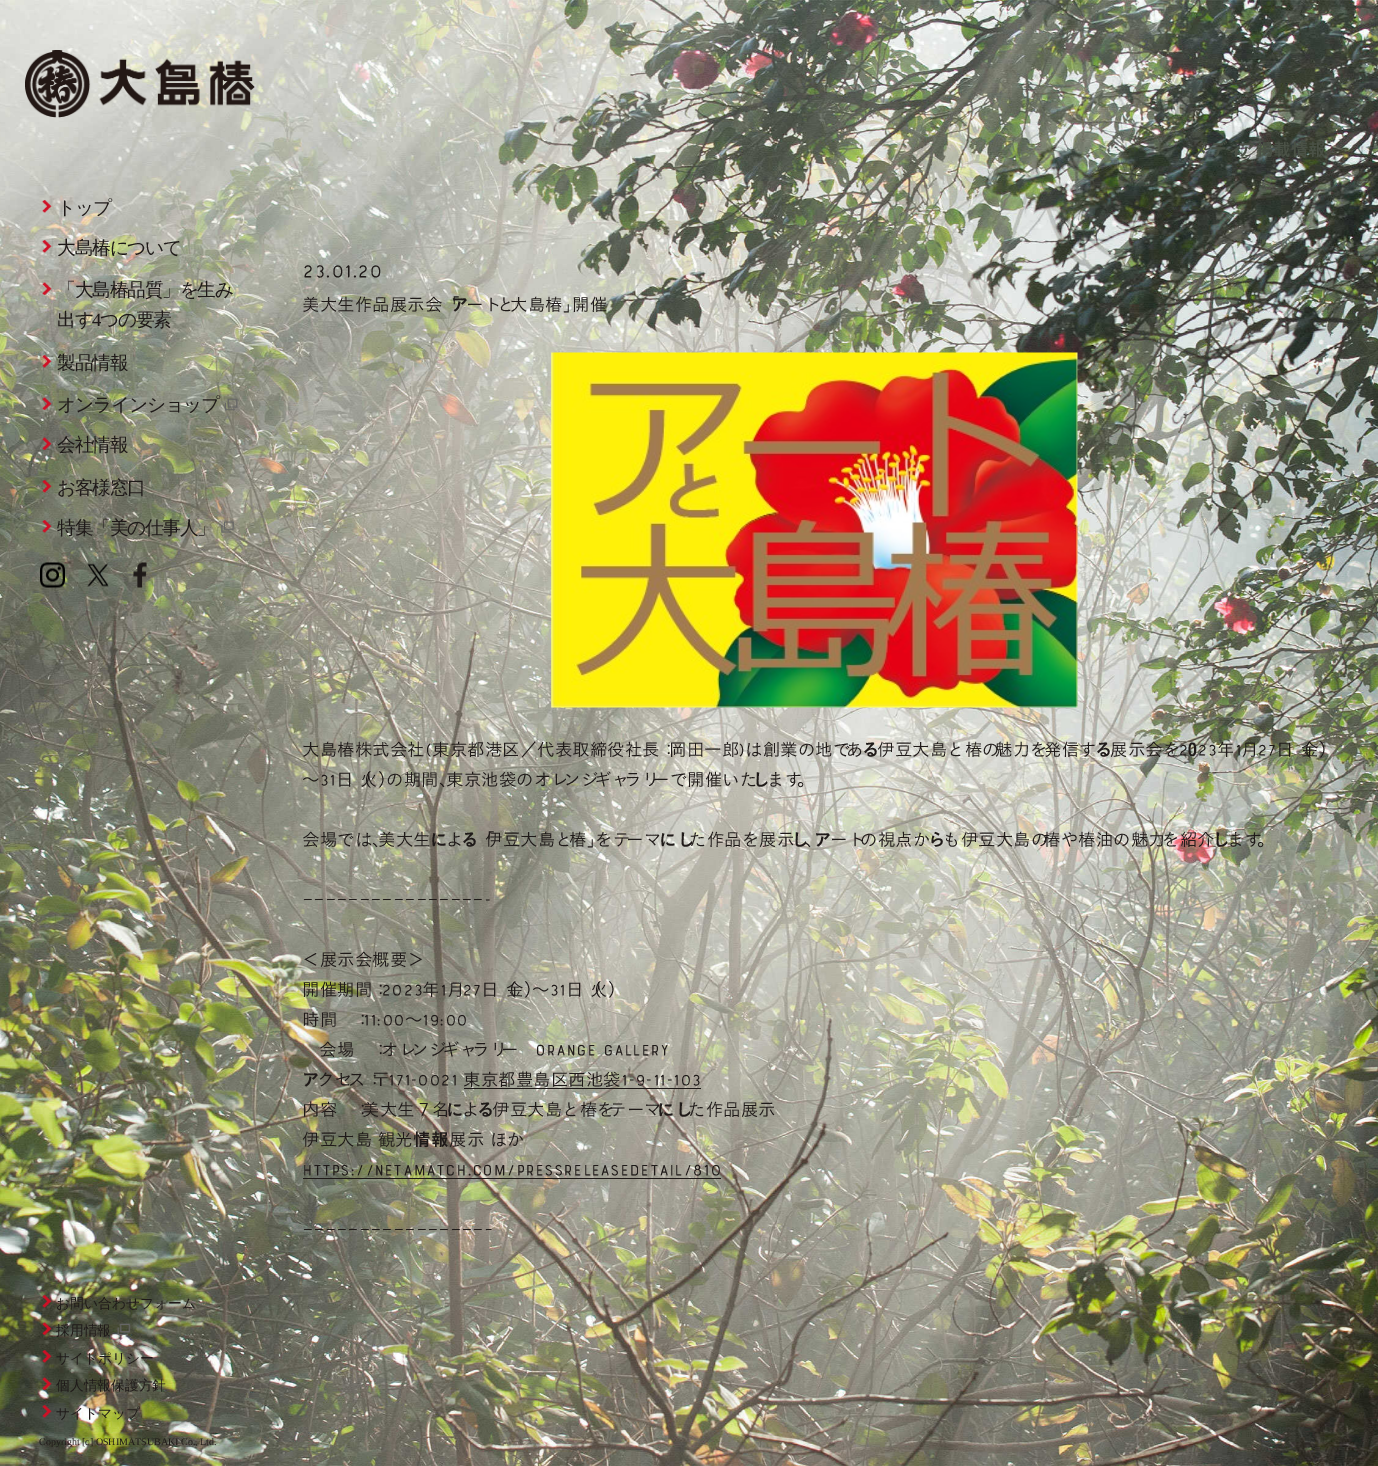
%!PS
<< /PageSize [1378 1466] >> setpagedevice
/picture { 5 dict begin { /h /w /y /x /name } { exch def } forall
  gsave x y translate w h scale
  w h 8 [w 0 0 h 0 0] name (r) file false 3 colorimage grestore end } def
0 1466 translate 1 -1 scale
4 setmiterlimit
1 setgray
0 0 1378 1466 rectfill
(img1.rgb) 0 0 1378 1466 picture
(img2.rgb) 25 50 230 68 picture
(img3.rgb) 42 200 10 13 picture
/WenQuanYiZenHei-Medium [18.75 0 0 -18.75 0 0] selectfont
0.122 0.102 0.098 setrgbcolor
57 214 moveto -1.25 0 (トップ) ashow
(img4.rgb) 42 240 10 13 picture
57 254 moveto -1.25 0 (大島椿について) ashow
(img5.rgb) 42 282 10 13 picture
57 296 moveto -1.25 0 (「大島椿品質」を生み) ashow
57 326 moveto -1.25 0 (出す) ashow
/LiberationSerif-Regular [18.75 0 0 -18.75 0 0] selectfont
92 326 moveto -1.25 0 (4) ashow
/WenQuanYiZenHei-Medium [18.75 0 0 -18.75 0 0] selectfont
100 326 moveto -1.25 0 (つの要素) ashow
(img6.rgb) 42 355 10 13 picture
57 369 moveto -1.25 0 (製品情報) ashow
(img7.rgb) 42 397 10 13 picture
57 411 moveto -1.25 0 (オンラインショップ) ashow
(img8.rgb) 225 398 13 13 picture
(img9.rgb) 42 437 10 13 picture
57 451 moveto -1.25 0 (会社情報) ashow
(img10.rgb) 42 480 10 13 picture
57 494 moveto -1.25 0 (お客様窓口) ashow
(img11.rgb) 42 520 10 13 picture
57 534 moveto -1.25 0 (特集「美の仕事人」) ashow
(img12.rgb) 221 520 13 13 picture
(img13.rgb) 40 562 25 26 picture
(img14.rgb) 87 563 22 24 picture
(img15.rgb) 133 562 14 26 picture
(img16.rgb) 42 1295 10 13 picture
/WenQuanYiZenHei-Medium [13.75 0 0 -13.75 0 0] selectfont
56 1308 moveto (お問い合わせフォーム) show
(img17.rgb) 42 1322 10 13 picture
56 1335 moveto (採用情報) show
(img18.rgb) 116 1323 15 12 picture
(img19.rgb) 42 1350 10 13 picture
56 1363 moveto (サイトポリシー) show
(img20.rgb) 42 1377 10 13 picture
56 1390 moveto (個人情報保護方針) show
(img21.rgb) 42 1405 10 13 picture
56 1418 moveto (サイトマップ) show
/LiberationSerif-Regular [10 0 0 -10 0 0] selectfont
39 1445 moveto (Copyright [c] OSHIMATSUBAKI Co., Ltd.) show
/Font-SemiBold [17.5 0 0 -17.5 0 0] selectfont
0.29 0.318 0.275 setrgbcolor
1192 156 moveto (メディ) show
1238 156 moveto (ア掲載情報) show
/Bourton-Bold [20 0 0 -20 0 0] selectfont
0.122 0.102 0.098 setrgbcolor
302 278 moveto (23.01.20) show
/Font-Light [17.5 0 0 -17.5 0 0] selectfont
302 311 moveto (美大生作品展示会「) show
/Font-SemiBold [17.5 0 0 -17.5 0 0] selectfont
451 311 moveto (ア) show
/Font-Light [17.5 0 0 -17.5 0 0] selectfont
466 311 moveto (ート) show
497 311 moveto (と) show
510 311 moveto (大島椿」) show
572 311 moveto (開催) show
(img22.rgb) 551 352 527 356 picture
302 756 moveto (大島椿株式会社) show
/Bourton-Bold [17.5 0 0 -17.5 0 0] selectfont
425 756 moveto (\() show
/Font-Light [17.5 0 0 -17.5 0 0] selectfont
432 756 moveto (東京都港区／代表取締役社長：) show
669 756 moveto (岡田一郎) show
/Bourton-Bold [17.5 0 0 -17.5 0 0] selectfont
737 756 moveto (\)) show
/Font-Light [17.5 0 0 -17.5 0 0] selectfont
745 756 moveto (は創業の地で) show
846 756 moveto (あ) show
/Font-SemiBold [17.5 0 0 -17.5 0 0] selectfont
862 756 moveto (る) show
/Font-Light [17.5 0 0 -17.5 0 0] selectfont
877 756 moveto (伊豆大島と椿の) show
995 756 moveto (魅力を) show
1044 756 moveto (発信す) show
/Font-SemiBold [17.5 0 0 -17.5 0 0] selectfont
1095 756 moveto (る) show
/Font-Light [17.5 0 0 -17.5 0 0] selectfont
1110 756 moveto (展示会を) show
/Bourton-Bold [17.5 0 0 -17.5 0 0] selectfont
1178 756 moveto (2) show
/Font-SemiBold [17.5 0 0 -17.5 0 0] selectfont
1188 756 moveto (0) show
/Bourton-Bold [17.5 0 0 -17.5 0 0] selectfont
1197 756 moveto (23) show
/Font-Light [17.5 0 0 -17.5 0 0] selectfont
1217 756 moveto (年) show
/Bourton-Bold [17.5 0 0 -17.5 0 0] selectfont
1235 756 moveto (1) show
/Font-Light [17.5 0 0 -17.5 0 0] selectfont
1241 756 moveto (月) show
/Bourton-Bold [17.5 0 0 -17.5 0 0] selectfont
1257 756 moveto (27) show
/Font-Light [17.5 0 0 -17.5 0 0] selectfont
1276 756 moveto (日（) show
1301 756 moveto (金）) show
302 786 moveto (～) show
/Bourton-Bold [17.5 0 0 -17.5 0 0] selectfont
319 786 moveto (31) show
/Font-Light [17.5 0 0 -17.5 0 0] selectfont
336 786 moveto (日（) show
360 786 moveto (火）) show
386 786 moveto (の期間、) show
446 786 moveto (東京池袋のオレ) show
563 786 moveto (ンジ) show
594 786 moveto (ギャ) show
624 786 moveto (ラリ) show
652 786 moveto (ーで開催いた) show
/Font-SemiBold [17.5 0 0 -17.5 0 0] selectfont
752 786 moveto (し) show
/Font-Light [17.5 0 0 -17.5 0 0] selectfont
767 786 moveto (ます) show
797 786 moveto (。) show
302 846 moveto (会場では、) show
378 846 moveto (美大生) show
/Font-SemiBold [17.5 0 0 -17.5 0 0] selectfont
430 846 moveto (に) show
/Font-Light [17.5 0 0 -17.5 0 0] selectfont
446 846 moveto (よ) show
/Font-SemiBold [17.5 0 0 -17.5 0 0] selectfont
461 846 moveto (る) show
/Font-Light [17.5 0 0 -17.5 0 0] selectfont
477 846 moveto (「) show
485 846 moveto (伊豆大島と) show
569 846 moveto (椿」) show
595 846 moveto (をテ) show
626 846 moveto (ーマ) show
/Font-SemiBold [17.5 0 0 -17.5 0 0] selectfont
659 846 moveto (にし) show
/Font-Light [17.5 0 0 -17.5 0 0] selectfont
689 846 moveto (た作品を展示) show
/Font-SemiBold [17.5 0 0 -17.5 0 0] selectfont
791 846 moveto (し) show
/Font-Light [17.5 0 0 -17.5 0 0] selectfont
805 846 moveto (、) show
/Font-SemiBold [17.5 0 0 -17.5 0 0] selectfont
814 846 moveto (ア) show
/Font-Light [17.5 0 0 -17.5 0 0] selectfont
830 846 moveto (ート) show
860 846 moveto (の視点か) show
/Font-SemiBold [17.5 0 0 -17.5 0 0] selectfont
928 846 moveto (ら) show
/Font-Light [17.5 0 0 -17.5 0 0] selectfont
943 846 moveto (も伊豆大島の) show
1043 846 moveto (椿や椿油の魅力) show
1162 846 moveto (を紹介) show
/Font-SemiBold [17.5 0 0 -17.5 0 0] selectfont
1212 846 moveto (し) show
/Font-Light [17.5 0 0 -17.5 0 0] selectfont
1227 846 moveto (ます) show
1257 846 moveto (。) show
/Bourton-Bold [17.5 0 0 -17.5 0 0] selectfont
302 906 moveto (————————————————-) show
/Font-Light [17.5 0 0 -17.5 0 0] selectfont
302 966 moveto (＜展示会概要＞) show
302 996 moveto (開催期間：) show
/Bourton-Bold [17.5 0 0 -17.5 0 0] selectfont
381 996 moveto (2023) show
/Font-Light [17.5 0 0 -17.5 0 0] selectfont
422 996 moveto (年) show
/Bourton-Bold [17.5 0 0 -17.5 0 0] selectfont
440 996 moveto (1) show
/Font-Light [17.5 0 0 -17.5 0 0] selectfont
447 996 moveto (月) show
/Bourton-Bold [17.5 0 0 -17.5 0 0] selectfont
462 996 moveto (27) show
/Font-Light [17.5 0 0 -17.5 0 0] selectfont
481 996 moveto (日（) show
506 996 moveto (金）) show
532 996 moveto (～) show
/Bourton-Bold [17.5 0 0 -17.5 0 0] selectfont
549 996 moveto (31) show
/Font-Light [17.5 0 0 -17.5 0 0] selectfont
566 996 moveto (日（) show
590 996 moveto (火）) show
302 1026 moveto (時間) show
354 1026 moveto (：) show
/Bourton-Bold [17.5 0 0 -17.5 0 0] selectfont
363 1026 moveto (11:00) show
/Font-Light [17.5 0 0 -17.5 0 0] selectfont
405 1026 moveto (～) show
/Bourton-Bold [17.5 0 0 -17.5 0 0] selectfont
422 1026 moveto (19:00) show
/Font-Light [17.5 0 0 -17.5 0 0] selectfont
319 1056 moveto (会場) show
372 1056 moveto (：) show
381 1056 moveto (オレ) show
411 1056 moveto (ンジ) show
442 1056 moveto (ギャ) show
472 1056 moveto (ラリ) show
501 1056 moveto (ー) show
/Bourton-Bold [17.5 0 0 -17.5 0 0] selectfont
535 1056 moveto (ORANGE GALLERY) show
/Font-SemiBold [17.5 0 0 -17.5 0 0] selectfont
302 1086 moveto (ア) show
/Font-Light [17.5 0 0 -17.5 0 0] selectfont
317 1086 moveto (クセ) show
348 1086 moveto (ス：) show
372 1086 moveto (〒) show
/Bourton-Bold [17.5 0 0 -17.5 0 0] selectfont
388 1086 moveto (171-0021) show
/Font-Light [17.5 0 0 -17.5 0 0] selectfont
463 1086 moveto (東京都豊島区西池袋) show
/Bourton-Bold [17.5 0 0 -17.5 0 0] selectfont
621 1086 moveto (1-9-11-103) show
464 1088 237 1 rectfill
/Font-Light [17.5 0 0 -17.5 0 0] selectfont
302 1116 moveto (内容) show
354 1116 moveto (：) show
362 1116 moveto (美大生７名) show
/Font-SemiBold [17.5 0 0 -17.5 0 0] selectfont
446 1116 moveto (に) show
/Font-Light [17.5 0 0 -17.5 0 0] selectfont
462 1116 moveto (よ) show
/Font-SemiBold [17.5 0 0 -17.5 0 0] selectfont
477 1116 moveto (る) show
/Font-Light [17.5 0 0 -17.5 0 0] selectfont
492 1116 moveto (伊豆大島と椿を) show
609 1116 moveto (テーマ) show
/Font-SemiBold [17.5 0 0 -17.5 0 0] selectfont
657 1116 moveto (にし) show
/Font-Light [17.5 0 0 -17.5 0 0] selectfont
688 1116 moveto (た作品展示) show
302 1146 moveto (伊豆大島 観光) show
/Font-SemiBold [17.5 0 0 -17.5 0 0] selectfont
413 1146 moveto (情報) show
/Font-Light [17.5 0 0 -17.5 0 0] selectfont
449 1146 moveto (展示 ほか) show
/Bourton-Bold [17.5 0 0 -17.5 0 0] selectfont
302 1176 moveto (https://netamatch.com/PressReleaseDetail/810) show
303 1178 418 1 rectfill
302 1236 moveto (————————————————–) show
showpage
